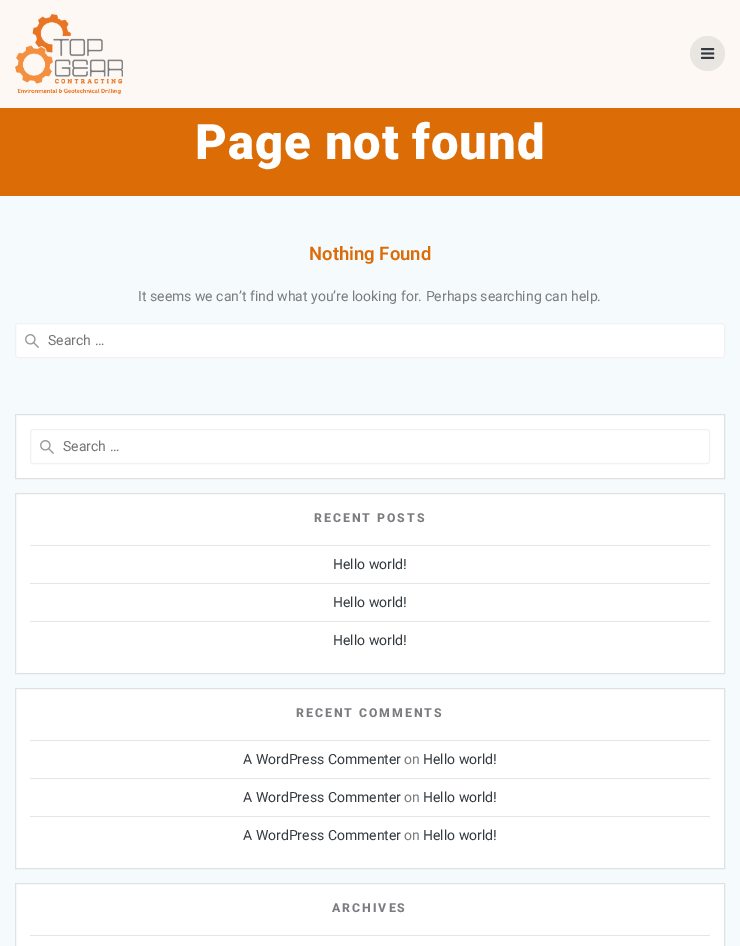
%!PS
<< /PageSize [740 946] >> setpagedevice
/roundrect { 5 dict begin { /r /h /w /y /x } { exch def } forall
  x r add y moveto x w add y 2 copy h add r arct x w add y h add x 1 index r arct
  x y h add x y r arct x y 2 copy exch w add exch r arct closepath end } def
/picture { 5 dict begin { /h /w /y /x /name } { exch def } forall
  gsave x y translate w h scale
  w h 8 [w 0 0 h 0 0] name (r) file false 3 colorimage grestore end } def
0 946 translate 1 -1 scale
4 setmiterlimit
0.863 0.424 0.024 setrgbcolor
0 0 740 946 rectfill
0.992 0.973 0.953 setrgbcolor
0 0 740 108 rectfill
(img1.rgb) 15 14 108 80 picture
0.914 0.898 0.882 setrgbcolor
newpath 707.5 53.5 17.5 0 360 arc closepath fill
(img2.rgb) 701 48 14 11 picture
/Roboto-Black [49 0 0 -49 0 0] selectfont
1 setgray
195 159 moveto 0.9 0 (Page not found) ashow
0.961 0.98 0.992 setrgbcolor
0 196 740 750 rectfill
/Roboto-SemiBold [18.5 0 0 -18.5 0 0] selectfont
0.863 0.424 0.024 setrgbcolor
309 260 moveto (Nothing Found) show
/Roboto-Regular [14 0 0 -14 0 0] selectfont
0.482 0.486 0.498 setrgbcolor
138 301 moveto (It seems we can’t find what you’re looking for. Perhaps searching can help.) show
1 setgray
15 323 710 35 3 roundrect fill
(img3.rgb) 25 334 14 14 picture
0.945 setgray
15.5 323.5 709 34 2.5 roundrect stroke
0.459 setgray
48 345 moveto (Search …) show
1 setgray
newpath 15.5 414.5 moveto 724.5 414.5 lineto 724.5 478.5 lineto 15.5 478.5 lineto closepath gsave fill grestore
0.878 0.882 0.882 setrgbcolor
stroke
(img3.rgb) 40 440 14 14 picture
0.945 setgray
30.5 429.5 679 34 2.5 roundrect stroke
0.459 setgray
63 451 moveto (Search …) show
1 setgray
newpath 15.5 493.5 moveto 724.5 493.5 lineto 724.5 673.5 lineto 15.5 673.5 lineto closepath gsave fill grestore
0.878 0.882 0.882 setrgbcolor
stroke
/Roboto-ExtraBold [12.25 0 0 -12.25 0 0] selectfont
0.482 0.486 0.498 setrgbcolor
314 522 moveto 2 0 (RECENT POSTS) ashow
0.902 setgray
30 545 680 1 rectfill
/Roboto-Regular [14 0 0 -14 0 0] selectfont
0.204 0.227 0.251 setrgbcolor
333 569 moveto (Hello world!) show
0.902 setgray
30 583 680 1 rectfill
0.204 0.227 0.251 setrgbcolor
333 607 moveto (Hello world!) show
0.902 setgray
30 621 680 1 rectfill
0.204 0.227 0.251 setrgbcolor
333 645 moveto (Hello world!) show
1 setgray
newpath 15.5 688.5 moveto 724.5 688.5 lineto 724.5 868.5 lineto 15.5 868.5 lineto closepath gsave fill grestore
0.878 0.882 0.882 setrgbcolor
stroke
/Roboto-ExtraBold [12.25 0 0 -12.25 0 0] selectfont
0.482 0.486 0.498 setrgbcolor
296 717 moveto 2 0 (RECENT COMMENTS) ashow
0.902 setgray
30 740 680 1 rectfill
/Roboto-Regular [14 0 0 -14 0 0] selectfont
0.204 0.227 0.251 setrgbcolor
243 764 moveto (A WordPress Commenter) show
0.482 0.486 0.498 setrgbcolor
404 764 moveto (on) show
0.204 0.227 0.251 setrgbcolor
423 764 moveto (Hello world!) show
0.902 setgray
30 778 680 1 rectfill
0.204 0.227 0.251 setrgbcolor
243 802 moveto (A WordPress Commenter) show
0.482 0.486 0.498 setrgbcolor
404 802 moveto (on) show
0.204 0.227 0.251 setrgbcolor
423 802 moveto (Hello world!) show
0.902 setgray
30 816 680 1 rectfill
0.204 0.227 0.251 setrgbcolor
243 840 moveto (A WordPress Commenter) show
0.482 0.486 0.498 setrgbcolor
404 840 moveto (on) show
0.204 0.227 0.251 setrgbcolor
423 840 moveto (Hello world!) show
1 setgray
newpath 15.5 883.5 moveto 724.5 883.5 lineto 724.5 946.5 lineto 15.5 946.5 lineto closepath gsave fill grestore
0.878 0.882 0.882 setrgbcolor
stroke
/Roboto-ExtraBold [12.25 0 0 -12.25 0 0] selectfont
0.482 0.486 0.498 setrgbcolor
332 912 moveto 2 0 (ARCHIVES) ashow
0.902 setgray
30 935 680 1 rectfill
showpage
